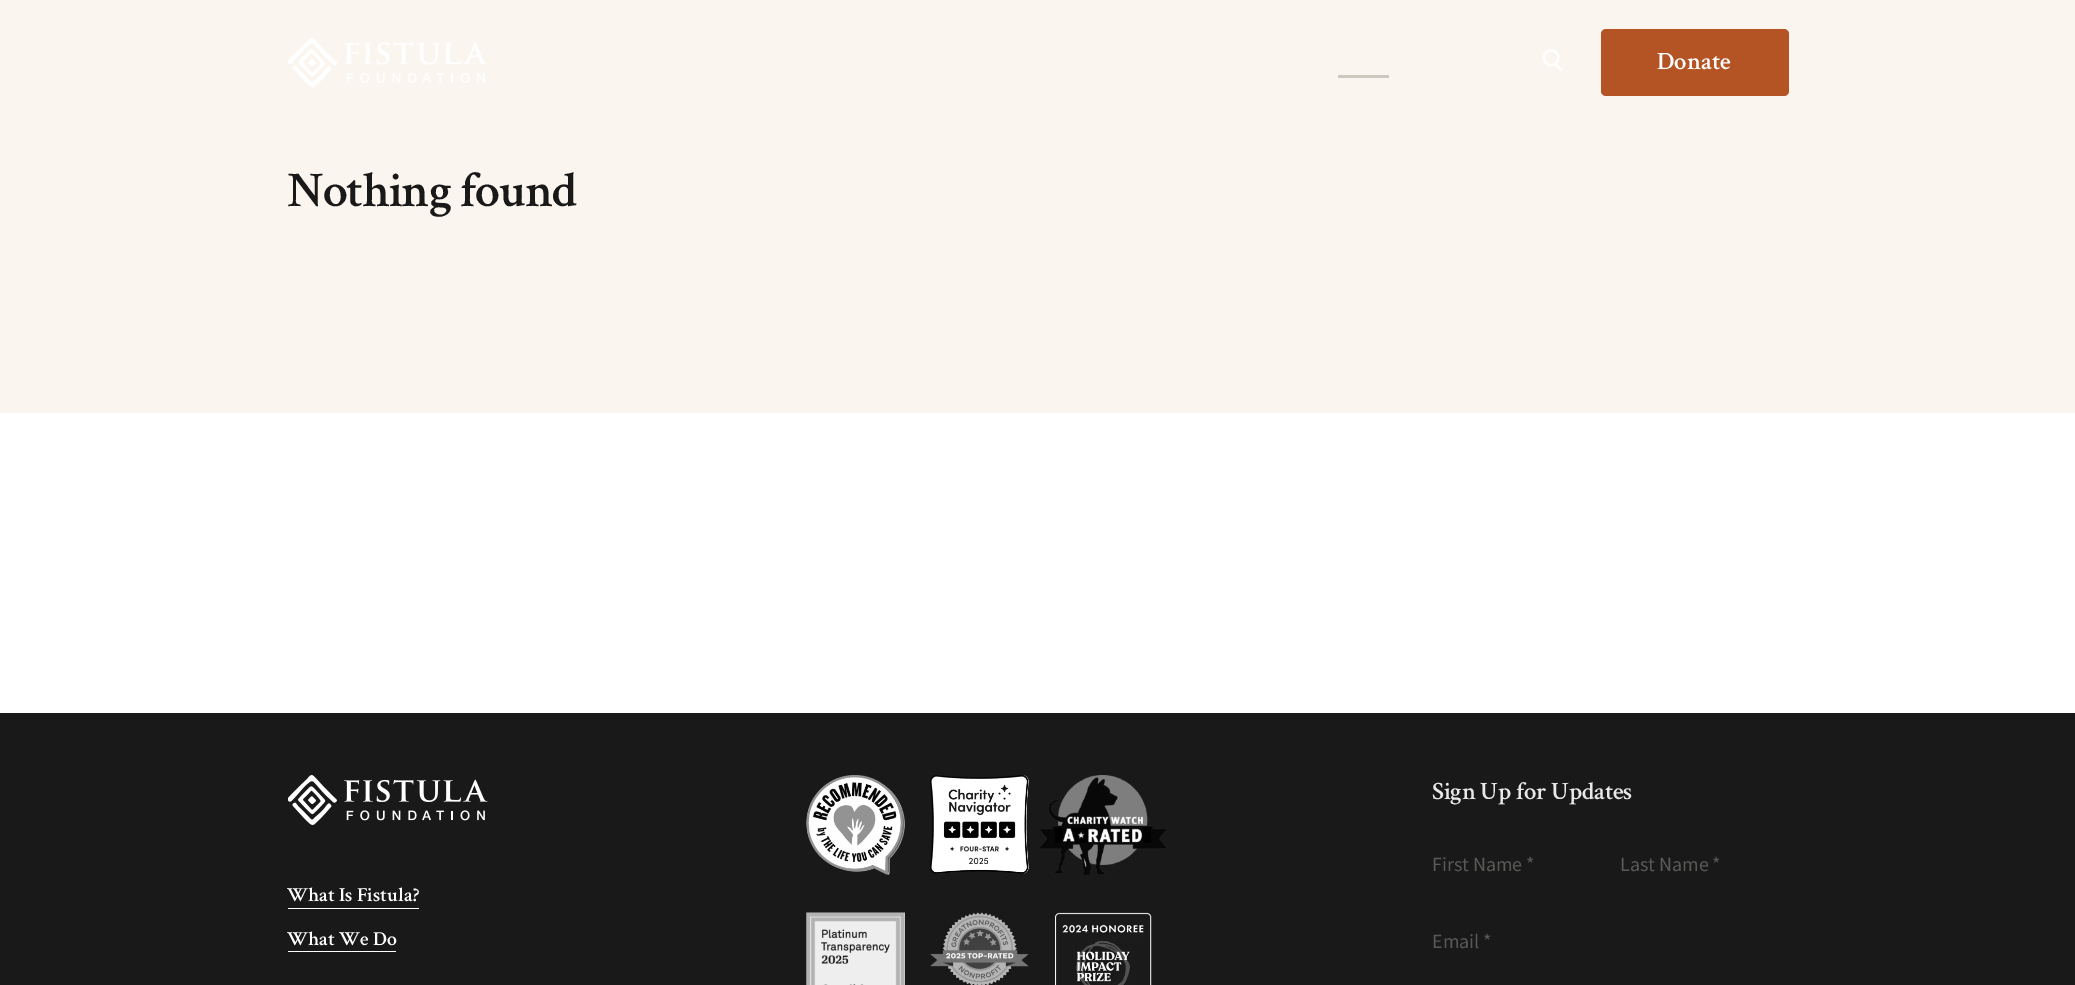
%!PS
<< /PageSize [2075 985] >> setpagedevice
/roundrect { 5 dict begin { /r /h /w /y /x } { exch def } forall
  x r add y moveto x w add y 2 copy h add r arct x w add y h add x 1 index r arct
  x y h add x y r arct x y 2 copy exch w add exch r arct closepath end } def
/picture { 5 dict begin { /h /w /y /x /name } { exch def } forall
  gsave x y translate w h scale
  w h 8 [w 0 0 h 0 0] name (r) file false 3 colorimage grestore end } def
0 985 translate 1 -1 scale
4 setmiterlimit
1 setgray
0 0 2075 985 rectfill
0.98 0.961 0.933 setrgbcolor
0 0 2075 413 rectfill
(img1.rgb) 288 38 199 50 picture
(img2.rgb) 1542 49 21 22 picture
0.706 0.329 0.141 setrgbcolor
1601 29 188 67 5 roundrect fill
/CrimsonText-SemiBold [25 0 0 -25 0 0] selectfont
1 setgray
1657 69 moveto (Donate) show
0.8 0.792 0.749 setrgbcolor
1338 75 51 3 rectfill
/CrimsonText-SemiBold [50 0 0 -50 0 0] selectfont
0.102 0.098 0.098 setrgbcolor
287 206 moveto -1.25 0 (Nothing found) ashow
0 713 2075 272 rectfill
(img3.rgb) 288 775 200 50 picture
/CrimsonText-SemiBold [20 0 0 -20 0 0] selectfont
1 setgray
287 901 moveto (What Is Fistula?) show
288 908 131 1 rectfill
287 945 moveto (What We Do) show
288 951 108 1 rectfill
(img4.rgb) 806 775 99 100 picture
(img5.rgb) 930 775 99 99 picture
(img6.rgb) 1040 775 128 100 picture
(img7.rgb) 806 912 99 73 picture
(img8.rgb) 930 912 99 73 picture
(img9.rgb) 1055 912 97 73 picture
/CrimsonText-SemiBold [25 0 0 -25 0 0] selectfont
0.91 setgray
1432 799 moveto -0.3 0 (Sign Up for Updates) ashow
/SourceSansPro-Regular [20 0 0 -20 0 0] selectfont
0.349 0.349 0.345 setrgbcolor
1432 871 moveto (First Name *) show
1620 871 moveto (Last Name *) show
1432 948 moveto (Email *) show
showpage
